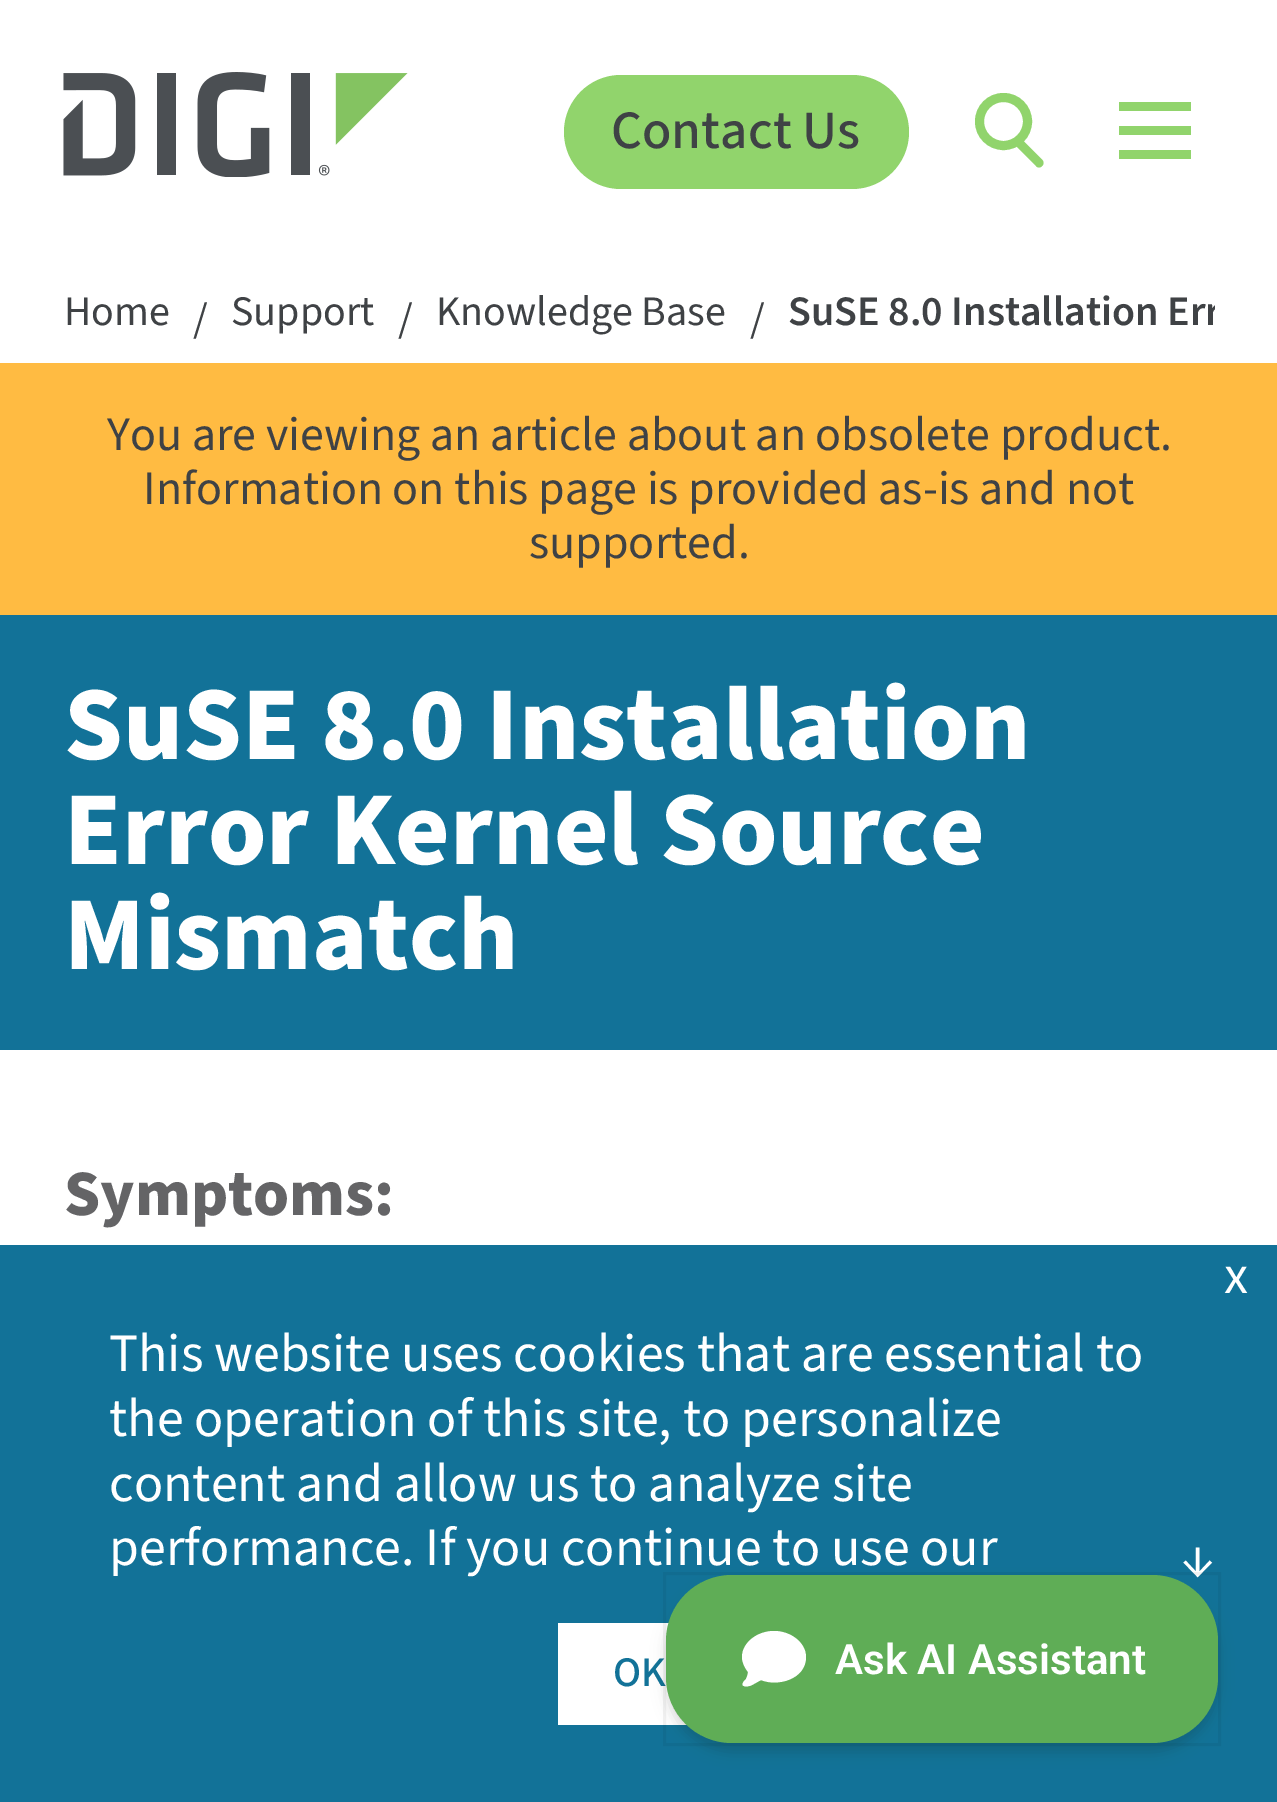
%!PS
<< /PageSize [1277 1802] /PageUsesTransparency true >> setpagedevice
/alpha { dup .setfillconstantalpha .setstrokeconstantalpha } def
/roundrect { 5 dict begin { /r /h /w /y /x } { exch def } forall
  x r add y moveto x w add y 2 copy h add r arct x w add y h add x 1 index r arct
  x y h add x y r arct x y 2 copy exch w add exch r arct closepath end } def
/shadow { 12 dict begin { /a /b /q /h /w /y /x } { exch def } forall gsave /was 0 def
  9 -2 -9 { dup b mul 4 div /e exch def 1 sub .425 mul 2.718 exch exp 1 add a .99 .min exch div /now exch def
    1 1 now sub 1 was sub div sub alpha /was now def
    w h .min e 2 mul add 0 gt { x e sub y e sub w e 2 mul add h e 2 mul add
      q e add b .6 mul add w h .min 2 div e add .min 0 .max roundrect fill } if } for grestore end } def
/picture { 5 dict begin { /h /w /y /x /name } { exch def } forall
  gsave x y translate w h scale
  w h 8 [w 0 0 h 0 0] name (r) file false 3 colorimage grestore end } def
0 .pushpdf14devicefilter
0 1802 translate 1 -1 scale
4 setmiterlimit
1 setgray
0 0 1277 1802 rectfill
(img1.rgb) 63 72 345 105 picture
0.569 0.831 0.424 setrgbcolor
564 75 345 114 57 roundrect fill
/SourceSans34-ExtraLight [54 0 0 -54 0 0] selectfont
0.247 0.259 0.271 setrgbcolor
611 148 moveto (Contact Us) show
0.569 0.831 0.424 setrgbcolor
9 setlinewidth
newpath 1003.5 121.5 24 0 360 arc closepath stroke
newpath 1017 140.5 moveto 1018.5 139 1021.5 139 1023 140.5 curveto 1042 159.5 lineto 1044 161.5 1044 164.5 1042 166 curveto 1040.5 168 1037.5 168 1036 166 curveto 1017 147 lineto 1015 145 1015 142.5 1017 140.5 curveto closepath fill
1119 102 72 9 rectfill
1119 126 72 9 rectfill
1119 150 72 9 rectfill
/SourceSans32-ExtraLight [42 0 0 -42 0 0] selectfont
0.247 0.259 0.271 setrgbcolor
64 325 moveto (Home) show
193 332 moveto (/) show
231 325 moveto (Support) show
398 332 moveto (/) show
436 325 moveto (Knowledge Base) show
750 332 moveto (/) show
gsave
63 288 1152 66 rectclip
/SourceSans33-ExtraLight [42 0 0 -42 0 0] selectfont
788 325 moveto (SuSE 8.0 Installation Err) show
grestore
1 0.733 0.259 setrgbcolor
0 363 1277 252 rectfill
/SourceSans32-ExtraLight [48 0 0 -48 0 0] selectfont
0.247 0.259 0.271 setrgbcolor
107 450 moveto (You are viewing an article about an obsolete product.) show
143 504 moveto (Information on this page is provided as-is and not) show
529 558 moveto (supported.) show
0.071 0.447 0.596 setrgbcolor
0 615 1277 435 rectfill
/SourceSans3-ExtraLight [105 0 0 -105 0 0] selectfont
1 setgray
64 759 moveto (SuSE 8.0 Installation) show
64 864 moveto (Error Kernel Source) show
64 969 moveto (Mismatch) show
/SourceSans3-ExtraLight [64.75 0 0 -64.75 0 0] selectfont
0.392 0.392 0.4 setrgbcolor
64 1215 moveto (Symptoms:) show
0.071 0.447 0.596 setrgbcolor
0 1245 1277 557 rectfill
/SourceSans32-ExtraLight [54 0 0 -54 0 0] selectfont
1 setgray
1224 1293 moveto (x) show
109 1371 moveto (This website uses cookies that are essential to) show
109 1436 moveto (the operation of this site, to personalize) show
109 1501 moveto (content and allow us to analyze site) show
109 1565 moveto (performance. If you continue to use our) show
1181 1576 moveto (↓) show
558 1623 129 102 rectfill
/SourceSans34-ExtraLight [42 0 0 -42 0 0] selectfont
0.071 0.447 0.596 setrgbcolor
613 1686 moveto (OK) show
0 setgray
666 1584 552 168 66 4.5 0.05 shadow
666 1584 552 168 66 7.5 0.1 shadow
0.05 alpha
3 setlinewidth
664.5 1573.5 555 171 rectstroke
1 alpha
0.373 0.678 0.337 setrgbcolor
666 1575 552 168 66 roundrect fill
1 setgray
newpath 806 1657 moveto 806 1679 778 1687 761 1680 curveto 752 1685 lineto 750 1686 746 1687 744 1686 curveto 740 1685 745 1680 746 1679 curveto 747 1677 748 1674 748 1672 curveto 745 1668 742 1663 742 1657 curveto 742 1643 757 1631 774 1631 curveto 791 1631 806 1643 806 1657 curveto closepath fill
/Roboto-SemiBold [42 0 0 -42 0 0] selectfont
835 1674 moveto (Ask AI Assistant) show
.poppdf14devicefilter showpage
